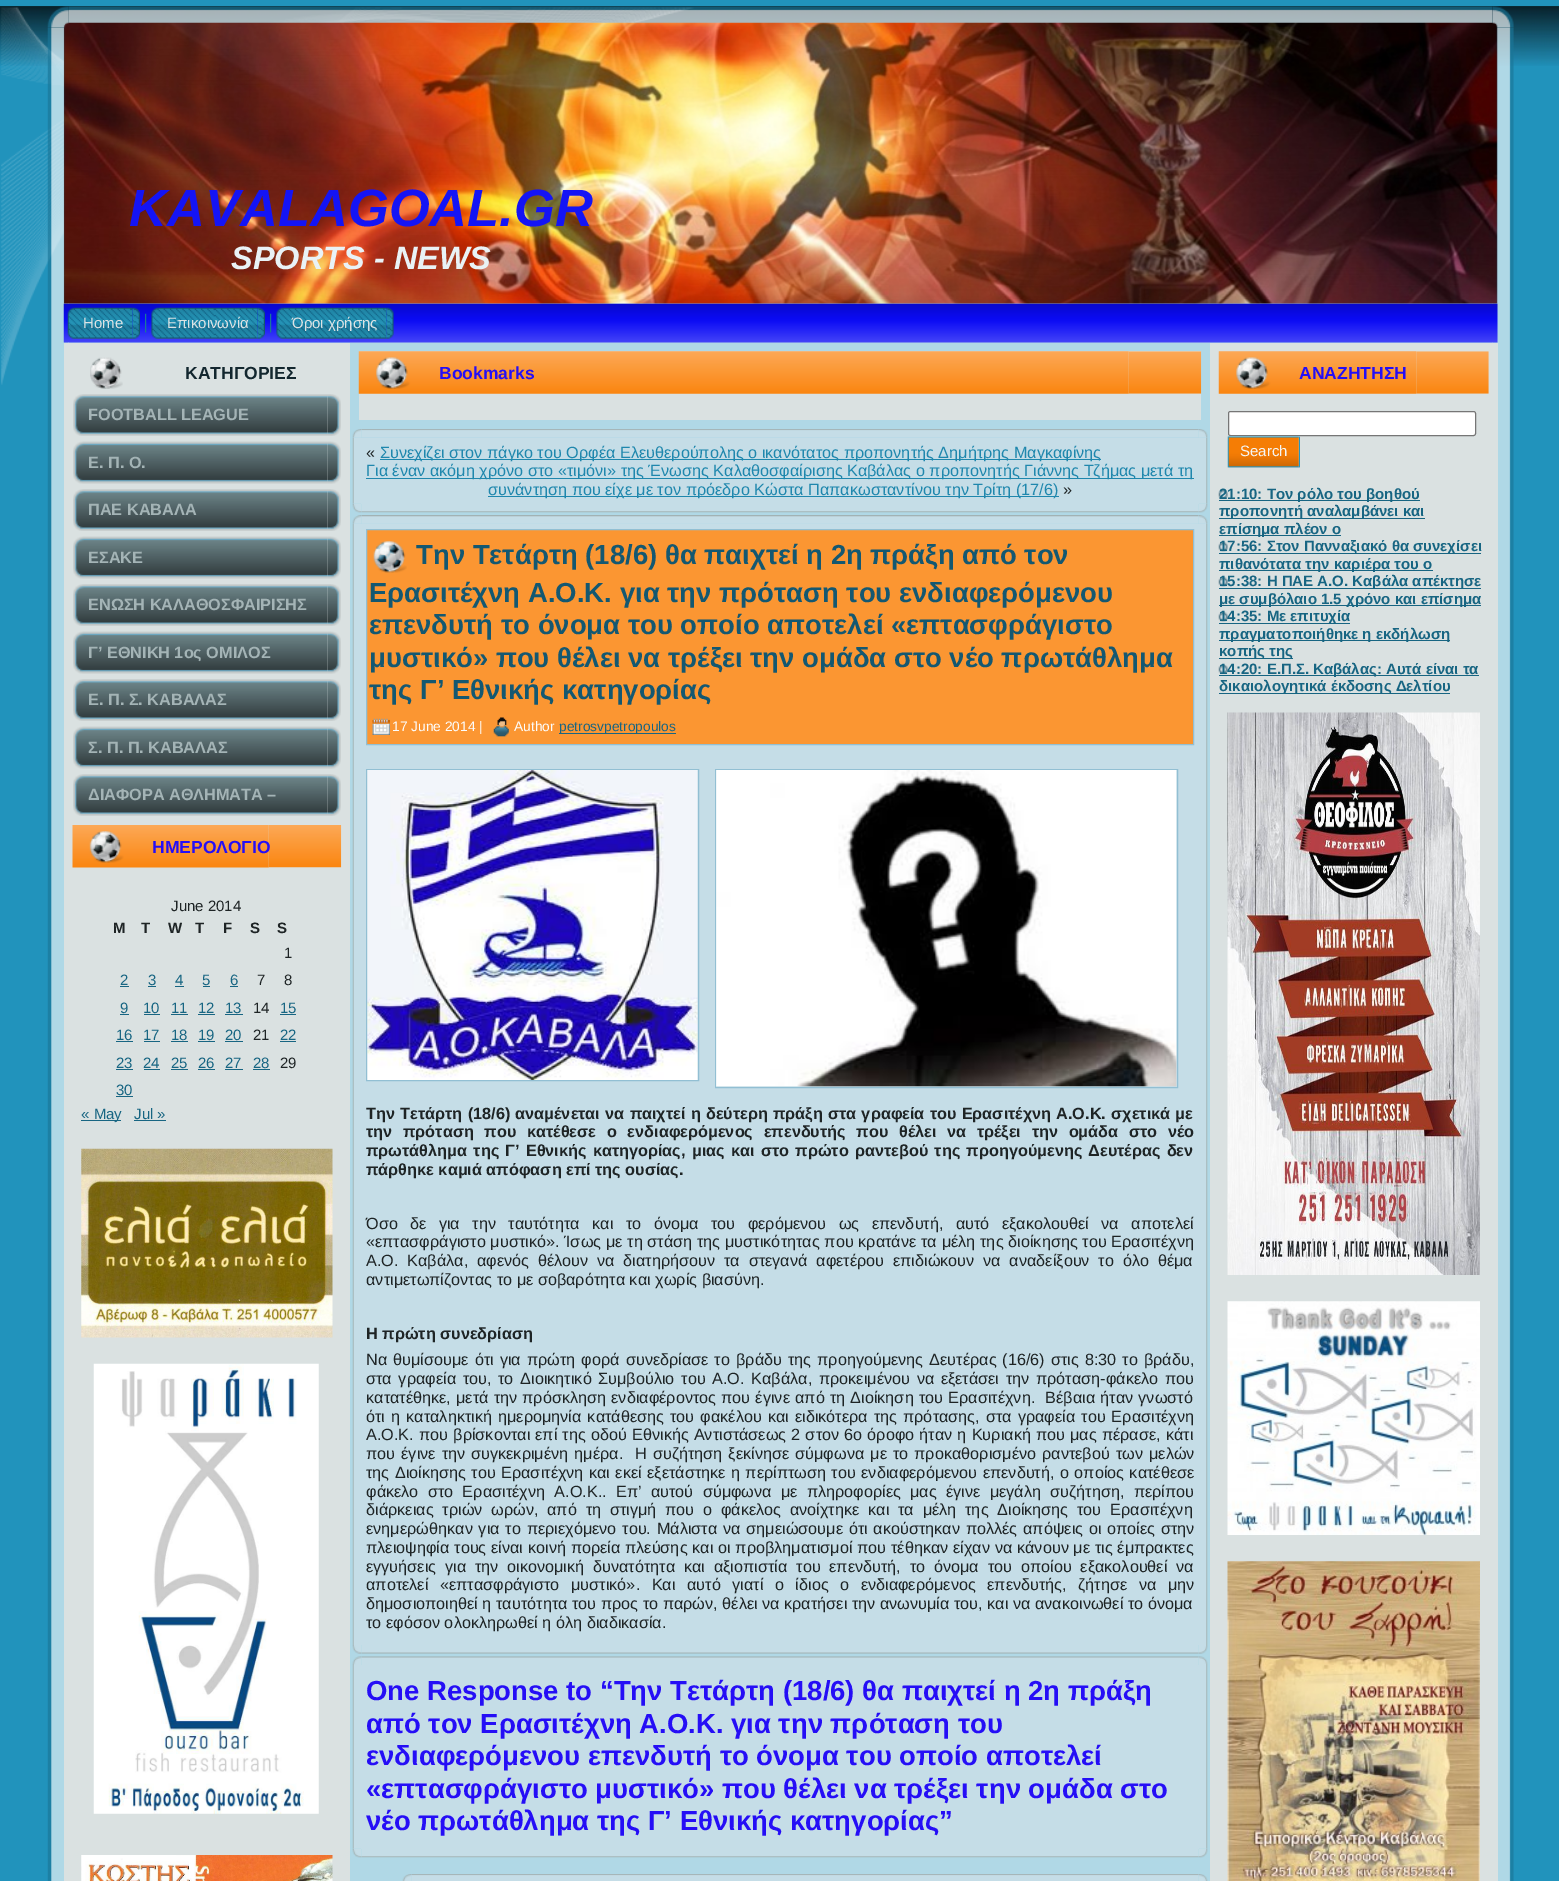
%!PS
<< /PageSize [1559 1881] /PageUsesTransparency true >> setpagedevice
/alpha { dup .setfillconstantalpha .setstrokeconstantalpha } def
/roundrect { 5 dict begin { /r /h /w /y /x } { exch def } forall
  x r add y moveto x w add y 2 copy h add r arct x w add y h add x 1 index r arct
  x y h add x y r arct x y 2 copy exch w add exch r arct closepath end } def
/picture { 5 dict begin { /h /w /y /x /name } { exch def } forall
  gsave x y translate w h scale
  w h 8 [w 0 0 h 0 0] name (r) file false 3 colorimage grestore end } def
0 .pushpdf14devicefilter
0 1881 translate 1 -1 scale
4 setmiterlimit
0.129 0.576 0.737 setrgbcolor
0 0 1559 1881 rectfill
(img1.rgb) 0 7 1559 59 picture
0.035 0.161 0.2 setrgbcolor
0 6 1559 1 rectfill
(img2.rgb) 1 7 693 378 picture
(img3.rgb) 47 6 22 22 picture
(img5.rgb) 1492 6 22 22 picture
(img4.rgb) 68 6 1425 18 picture
(img6.rgb) 47 27 22 1854 picture
(img72.rgb) 1492 27 22 1854 picture
0.65 alpha
0.992 setgray
68 303 1425 1578 rectfill
1 alpha
(img7.rgb) 63 22 1435 282 picture
(img8.rgb) 69 27 1424 272 picture
/LiberationSans-BoldItalic [52.5 0 0 -52.5 0 0] selectfont
0.078 0.078 0.961 setrgbcolor
129 226 moveto (KAVALAGOAL.GR) show
/LiberationSans-BoldItalic [32.5 0 0 -32.5 0 0] selectfont
0.914 0.949 0.965 setrgbcolor
231 269 moveto (SPORTS - NEWS) show
(img9.rgb) 63 303 1435 40 picture
(img10.rgb) 67 307 66 32 picture
(img11.rgb) 132 307 8 32 picture
/LiberationSans-Regular [15 0 0 -15 0 0] selectfont
0.867 0.89 0.894 setrgbcolor
83 328 moveto (Home) show
(img12.rgb) 145 313 2 20 picture
(img13.rgb) 151 307 107 32 picture
(img14.rgb) 257 307 8 32 picture
167 328 moveto (Επικοινωνία) show
(img12.rgb) 270 313 2 20 picture
(img15.rgb) 276 307 111 32 picture
(img16.rgb) 386 307 8 32 picture
292 328 moveto (Όροι χρήσης) show
0.855 0.882 0.882 setrgbcolor
64 343 286 1538 rectfill
(img17.rgb) 90 357 33 32 picture
/LiberationSans-Bold [17.5 0 0 -17.5 0 0] selectfont
0.075 0.153 0.184 setrgbcolor
185 379 moveto (ΚΑΤΗΓΟΡΙΕΣ) show
(img18.rgb) 73 394 255 42 picture
(img19.rgb) 327 394 14 42 picture
/LiberationSans-Bold [16.25 0 0 -16.25 0 0] selectfont
0.643 0.706 0.714 setrgbcolor
88 420 moveto (FOOTBALL LEAGUE) show
(img20.rgb) 73 441 255 43 picture
(img21.rgb) 327 441 14 43 picture
88 468 moveto (Ε. Π. Ο.) show
(img18.rgb) 73 489 255 42 picture
(img19.rgb) 327 489 14 42 picture
88 515 moveto (ΠΑΕ ΚΑΒΑΛΑ) show
(img20.rgb) 73 536 255 43 picture
(img21.rgb) 327 536 14 43 picture
88 563 moveto (ΕΣΑΚΕ) show
(img22.rgb) 73 584 255 42 picture
(img23.rgb) 327 584 14 42 picture
88 610 moveto (ΕΝΩΣΗ ΚΑΛΑΘΟΣΦΑΙΡΙΣΗΣ) show
(img20.rgb) 73 631 255 43 picture
(img21.rgb) 327 631 14 43 picture
88 658 moveto (Γ’ ΕΘΝΙΚΗ 1ος ΟΜΙΛΟΣ) show
(img18.rgb) 73 679 255 42 picture
(img19.rgb) 327 679 14 42 picture
88 705 moveto (Ε. Π. Σ. ΚΑΒΑΛΑΣ) show
(img20.rgb) 73 726 255 43 picture
(img21.rgb) 327 726 14 43 picture
88 753 moveto (Σ. Π. Π. ΚΑΒΑΛΑΣ) show
(img24.rgb) 73 774 255 42 picture
(img25.rgb) 327 774 14 42 picture
88 800 moveto (ΔΙΑΦΟΡΑ ΑΘΛΗΜΑΤΑ –) show
(img26.rgb) 72 825 197 43 picture
(img27.rgb) 268 825 74 43 picture
/LiberationSans-Bold [17.5 0 0 -17.5 0 0] selectfont
0.145 0.055 0.965 setrgbcolor
152 853 moveto (ΗΜΕΡΟΛΟΓΙΟ) show
/LiberationSans-Regular [15 0 0 -15 0 0] selectfont
0.118 0.141 0.145 setrgbcolor
171 911 moveto (June 2014) show
/LiberationSans-Bold [15 0 0 -15 0 0] selectfont
113 933 moveto (M) show
141 933 moveto (T) show
168 933 moveto (W) show
195 933 moveto (T) show
223 933 moveto (F) show
250 933 moveto (S) show
277 933 moveto (S) show
/LiberationSans-Regular [15 0 0 -15 0 0] selectfont
284 958 moveto (1) show
0.09 0.396 0.51 setrgbcolor
120 985 moveto (2) show
120 986 9 1 rectfill
148 985 moveto (3) show
148 986 8 1 rectfill
175 985 moveto (4) show
175 986 9 1 rectfill
202 985 moveto (5) show
203 986 7 1 rectfill
230 985 moveto (6) show
230 986 8 1 rectfill
0.118 0.141 0.145 setrgbcolor
257 985 moveto (7) show
284 985 moveto (8) show
0.09 0.396 0.51 setrgbcolor
120 1013 moveto (9) show
120 1014 9 1 rectfill
143 1013 moveto (10) show
144 1014 16 1 rectfill
171 1013 moveto (11) show
171 1014 17 1 rectfill
198 1013 moveto (12) show
198 1014 17 1 rectfill
225 1013 moveto (13) show
225 1014 18 1 rectfill
0.118 0.141 0.145 setrgbcolor
253 1013 moveto (14) show
0.09 0.396 0.51 setrgbcolor
280 1013 moveto (15) show
280 1014 16 1 rectfill
116 1040 moveto (16) show
116 1041 17 1 rectfill
143 1040 moveto (17) show
144 1041 16 1 rectfill
171 1040 moveto (18) show
171 1041 17 1 rectfill
198 1040 moveto (19) show
198 1041 17 1 rectfill
225 1040 moveto (20) show
225 1041 18 1 rectfill
0.118 0.141 0.145 setrgbcolor
253 1040 moveto (21) show
0.09 0.396 0.51 setrgbcolor
280 1040 moveto (22) show
280 1041 16 1 rectfill
116 1068 moveto (23) show
116 1069 17 1 rectfill
143 1068 moveto (24) show
144 1069 16 1 rectfill
171 1068 moveto (25) show
171 1069 17 1 rectfill
198 1068 moveto (26) show
198 1069 17 1 rectfill
225 1068 moveto (27) show
225 1069 18 1 rectfill
253 1068 moveto (28) show
253 1069 17 1 rectfill
0.118 0.141 0.145 setrgbcolor
280 1068 moveto (29) show
0.09 0.396 0.51 setrgbcolor
116 1095 moveto (30) show
116 1096 17 1 rectfill
81 1120 40 1 rectfill
81 1119 moveto (« May) show
134 1119 moveto (Jul ») show
134 1120 32 1 rectfill
(img28.rgb) 81 1148 252 190 picture
(img29.rgb) 93 1363 226 451 picture
(img30.rgb) 81 1855 252 26 picture
0.855 0.882 0.882 setrgbcolor
359 351 842 69 rectfill
(img31.rgb) 358 351 771 43 picture
(img32.rgb) 1128 351 74 43 picture
/LiberationSans-Bold [17.5 0 0 -17.5 0 0] selectfont
0.145 0.055 0.965 setrgbcolor
439 379 moveto (Bookmarks) show
(img33.rgb) 352 429 10 9 picture
(img35.rgb) 1198 429 10 9 picture
(img34.rgb) 361 429 838 9 picture
(img38.rgb) 352 503 10 10 picture
(img36.rgb) 352 437 10 67 picture
(img40.rgb) 1198 503 10 10 picture
(img37.rgb) 1198 437 10 67 picture
0.773 0.867 0.906 setrgbcolor
361 438 838 66 rectfill
/LiberationSans-Regular [16.25 0 0 -16.25 0 0] selectfont
0.118 0.141 0.145 setrgbcolor
366 458 moveto («) show
0.122 0.529 0.678 setrgbcolor
380 459 721 1 rectfill
380 458 moveto (Συνεχίζει στον πάγκο του Ορφέα Ελευθερούπολης ο ικανότατος προπονητής Δημήτρης Μαγκαφίνης) show
366 478 828 1 rectfill
366 476 moveto (Για έναν ακόμη χρόνο στο «τιμόνι» της Ένωσης Καλαθοσφαίρισης Καβάλας ο προπονητής Γιάννης Τζήμας μετά τη) show
488 496 571 1 rectfill
488 495 moveto (συνάντηση που είχε με τον πρόεδρο Κώστα Παπακωσταντίνου την Τρίτη \(17/6\)) show
0.118 0.141 0.145 setrgbcolor
1063 495 moveto (») show
(img39.rgb) 361 504 838 9 picture
(img41.rgb) 352 515 10 9 picture
(img43.rgb) 1198 515 10 9 picture
(img42.rgb) 361 515 838 9 picture
(img44.rgb) 352 524 9 1121 picture
0.773 0.867 0.906 setrgbcolor
361 524 838 1121 rectfill
(img45.rgb) 1199 524 9 1121 picture
0.984 0.588 0.196 setrgbcolor
newpath 366.5 529.5 moveto 1193.5 529.5 lineto 1193.5 744.5 lineto 366.5 744.5 lineto closepath gsave fill grestore
0.573 0.749 0.827 setrgbcolor
stroke
(img46.rgb) 373 541 34 32 picture
/LiberationSans-Bold [27.5 0 0 -27.5 0 0] selectfont
0.078 0.345 0.443 setrgbcolor
416 564 moveto (Την Τετάρτη \(18/6\) θα παιχτεί η 2η πράξη από τον) show
369 602 moveto (Ερασιτέχνη Α.Ο.Κ. για την πρόταση του ενδιαφερόμενου) show
369 634 moveto (επενδυτή το όνομα του οποίο αποτελεί «επτασφράγιστο) show
369 667 moveto (μυστικό» που θέλει να τρέξει την ομάδα στο νέο πρωτάθλημα) show
369 699 moveto (της Γ’ Εθνικής κατηγορίας) show
(img47.rgb) 372 718 18 17 picture
/LiberationSans-Regular [13.75 0 0 -13.75 0 0] selectfont
0.988 0.992 0.992 setrgbcolor
392 731 moveto (17 June 2014 |) show
(img48.rgb) 493 717 16 20 picture
514 731 moveto (Author) show
0.09 0.396 0.51 setrgbcolor
559 733 117 1 rectfill
559 731 moveto (petrosvpetropoulos) show
0.573 0.749 0.827 setrgbcolor
366.5 769.5 332 311 rectstroke
(img49.rgb) 367 770 331 310 picture
715.5 769.5 462 318 rectstroke
(img50.rgb) 716 770 461 317 picture
/LiberationSans-Bold [16.25 0 0 -16.25 0 0] selectfont
0.118 0.141 0.145 setrgbcolor
366 1119 moveto 0.75 0 32 (Την Τετάρτη \(18/6\) αναμένεται να παιχτεί η δεύτερη πράξη στα γραφεία του Ερασιτέχνη Α.Ο.Κ. σχετικά με) widthshow
366 1137 moveto 6.25 0 32 (την πρόταση που κατέθεσε ο ενδιαφερόμενος επενδυτής που θέλει να τρέξει την ομάδα στο νέο) widthshow
366 1156 moveto 1.75 0 32 (πρωτάθλημα της Γ’ Εθνικής κατηγορίας, μιας και στο πρώτο ραντεβού της προηγούμενης Δευτέρας δεν) widthshow
366 1175 moveto (πάρθηκε καμιά απόφαση επί της ουσίας.) show
/LiberationSans-Regular [16.25 0 0 -16.25 0 0] selectfont
366 1229 moveto 7.9 0 32 (Όσο δε για την ταυτότητα και το όνομα του φερόμενου ως επενδυτή, αυτό εξακολουθεί να αποτελεί) widthshow
366 1247 moveto 0.25 0 32 («επτασφράγιστο μυστικό». Ίσως με τη στάση της μυστικότητας που κρατάνε τα μέλη της διοίκησης του Ερασιτέχνη) widthshow
366 1266 moveto 4.25 0 32 (Α.Ο. Καβάλα, αφενός θέλουν να διατηρήσουν τα στεγανά αφετέρου επιδιώκουν να αναδείξουν το όλο θέμα) widthshow
366 1285 moveto (αντιμετωπίζοντας το με σοβαρότητα και χωρίς βιασύνη.) show
/LiberationSans-Bold [16.25 0 0 -16.25 0 0] selectfont
366 1339 moveto (H πρώτη συνεδρίαση) show
/LiberationSans-Regular [16.25 0 0 -16.25 0 0] selectfont
366 1365 moveto 1.5 0 32 (Να θυμίσουμε ότι για πρώτη φορά συνεδρίασε το βράδυ της προηγούμενης Δευτέρας \(16/6\) στις 8:30 το βράδυ,) widthshow
366 1384 moveto 2.1 0 32 (στα γραφεία του, το Διοικητικό Συμβούλιο του Α.Ο. Καβάλα, προκειμένου να εξετάσει την πρόταση-φάκελο που) widthshow
366 1403 moveto 0.6 0 32 (κατατέθηκε, μετά την πρόσκληση ενδιαφέροντος που έγινε από τη Διοίκηση του Ερασιτέχνη.  Βέβαια ήταν γνωστό) widthshow
366 1422 moveto 1.5 0 32 (ότι η καταληκτική ημερομηνία κατάθεσης του φακέλου και ειδικότερα της πρότασης, στα γραφεία του Ερασιτέχνη) widthshow
366 1440 moveto 0.6 0 32 (Α.Ο.Κ. που βρίσκονται επί της οδού Εθνικής Αντιστάσεως 2 στον 6ο όροφο ήταν η Κυριακή που μας πέρασε, κάτι) widthshow
366 1459 moveto 1.5 0 32 (που έγινε την συγκεκριμένη ημέρα.  Η συζήτηση ξεκίνησε σύμφωνα με το προκαθορισμένο ραντεβού των μελών) widthshow
366 1478 moveto 0.9 0 32 (της Διοίκησης του Ερασιτέχνη και εκεί εξετάστηκε η περίπτωση του ενδιαφερόμενου επενδυτή, ο οποίος κατέθεσε) widthshow
366 1497 moveto 4.75 0 32 (φάκελο στο Ερασιτέχνη Α.Ο.Κ.. Επ’ αυτού σύμφωνα με πληροφορίες μας έγινε μεγάλη συζήτηση, περίπου) widthshow
366 1515 moveto 4.25 0 32 (διάρκειας τριών ωρών, από τη στιγμή που ο φάκελος ανοίχτηκε και τα μέλη της Διοίκησης του Ερασιτέχνη) widthshow
366 1534 moveto 1.25 0 32 (ενημερώθηκαν για το περιεχόμενο του. Μάλιστα να σημειώσουμε ότι ακούστηκαν πολλές απόψεις οι οποίες στην) widthshow
366 1553 moveto 0.25 0 32 (πλειοψηφία τους είναι κοινή πορεία πλεύσης και οι προβληματισμοί που τέθηκαν είχαν να κάνουν με τις έμπρακτες) widthshow
366 1572 moveto 4.25 0 32 (εγγυήσεις για την οικονομική δυνατότητα και αξιοπιστία του επενδυτή, το όνομα του οποίου εξακολουθεί να) widthshow
366 1590 moveto 7 0 32 (αποτελεί «επτασφράγιστο μυστικό». Και αυτό γιατί ο ίδιος ο ενδιαφερόμενος επενδυτής, ζήτησε να μην) widthshow
366 1609 moveto (δημοσιοποιηθεί η ταυτότητα του προς το παρών, θέλει να κρατήσει την ανωνυμία του, και να ανακοινωθεί το όνομα) show
366 1628 moveto (το εφόσον ολοκληρωθεί η όλη διαδικασία.) show
(img51.rgb) 352 1645 10 9 picture
(img53.rgb) 1198 1645 10 9 picture
(img52.rgb) 361 1645 838 9 picture
(img54.rgb) 352 1656 10 9 picture
(img56.rgb) 1198 1656 10 9 picture
(img55.rgb) 361 1656 838 9 picture
(img38.rgb) 352 1848 10 10 picture
(img57.rgb) 352 1665 9 184 picture
(img40.rgb) 1198 1848 10 10 picture
0.773 0.867 0.906 setrgbcolor
361 1665 838 184 rectfill
(img58.rgb) 1199 1665 9 184 picture
/LiberationSans-Bold [27.5 0 0 -27.5 0 0] selectfont
0.145 0.055 0.965 setrgbcolor
366 1700 moveto (One Response to “Την Τετάρτη \(18/6\) θα παιχτεί η 2η πράξη) show
366 1733 moveto (από τον Ερασιτέχνη Α.Ο.Κ. για την πρόταση του) show
366 1765 moveto (ενδιαφερόμενου επενδυτή το όνομα του οποίο αποτελεί) show
366 1798 moveto («επτασφράγιστο μυστικό» που θέλει να τρέξει την ομάδα στο) show
366 1830 moveto (νέο πρωτάθλημα της Γ’ Εθνικής κατηγορίας”) show
(img59.rgb) 361 1849 838 9 picture
(img60.rgb) 402 1874 10 7 picture
(img62.rgb) 1198 1874 10 7 picture
(img61.rgb) 411 1874 788 7 picture
0.855 0.882 0.882 setrgbcolor
1210 343 288 1538 rectfill
(img63.rgb) 1218 351 199 43 picture
(img64.rgb) 1416 351 73 43 picture
/LiberationSans-Bold [17.5 0 0 -17.5 0 0] selectfont
0.145 0.055 0.965 setrgbcolor
1299 379 moveto (ΑΝΑΖΗΤΗΣΗ) show
1 setgray
1228.5 411.5 247 24 2 roundrect gsave fill grestore
0.463 setgray
stroke
(img65.rgb) 1227 436 72 32 picture
/LiberationSans-Regular [15 0 0 -15 0 0] selectfont
0.957 0.965 0.965 setrgbcolor
1240 456 moveto (Search) show
(img66.rgb) 1298 436 2 32 picture
(img67.rgb) 1218 489 10 10 picture
0.09 0.396 0.51 setrgbcolor
1219 500 201 1 rectfill
/LiberationSans-Bold [15 0 0 -15 0 0] selectfont
1219 499 moveto (21:10: Τον ρόλο του βοηθού) show
1219 518 206 1 rectfill
1219 516 moveto (προπονητή αναλαμβάνει και) show
1219 535 122 1 rectfill
1219 534 moveto (επίσημα πλέον ο) show
(img68.rgb) 1218 542 10 10 picture
1219 553 262 1 rectfill
1219 551 moveto (17:56: Στον Πανναξιακό θα συνεχίσει) show
1219 570 214 1 rectfill
1219 569 moveto (πιθανότατα την καριέρα του ο) show
(img68.rgb) 1218 577 10 10 picture
1219 588 262 1 rectfill
1219 586 moveto (15:38: Η ΠΑΕ Α.Ο. Καβάλα απέκτησε) show
1219 605 262 1 rectfill
1219 604 moveto (με συμβόλαιο 1.5 χρόνο και επίσημα) show
(img68.rgb) 1218 612 10 10 picture
1219 623 131 1 rectfill
1219 621 moveto (14:35: Με επιτυχία) show
1219 640 231 1 rectfill
1219 639 moveto (πραγματοποιήθηκε η εκδήλωση) show
1219 658 74 1 rectfill
1219 656 moveto (κοπής της) show
(img67.rgb) 1218 664 10 10 picture
1219 675 260 1 rectfill
1219 674 moveto (14:20: Ε.Π.Σ. Καβάλας: Αυτά είναι τα) show
1219 693 231 1 rectfill
1219 691 moveto (δικαιολογητικά έκδοσης Δελτίου) show
(img69.rgb) 1227 712 253 563 picture
(img70.rgb) 1227 1301 253 234 picture
(img71.rgb) 1227 1561 253 320 picture
.poppdf14devicefilter showpage
